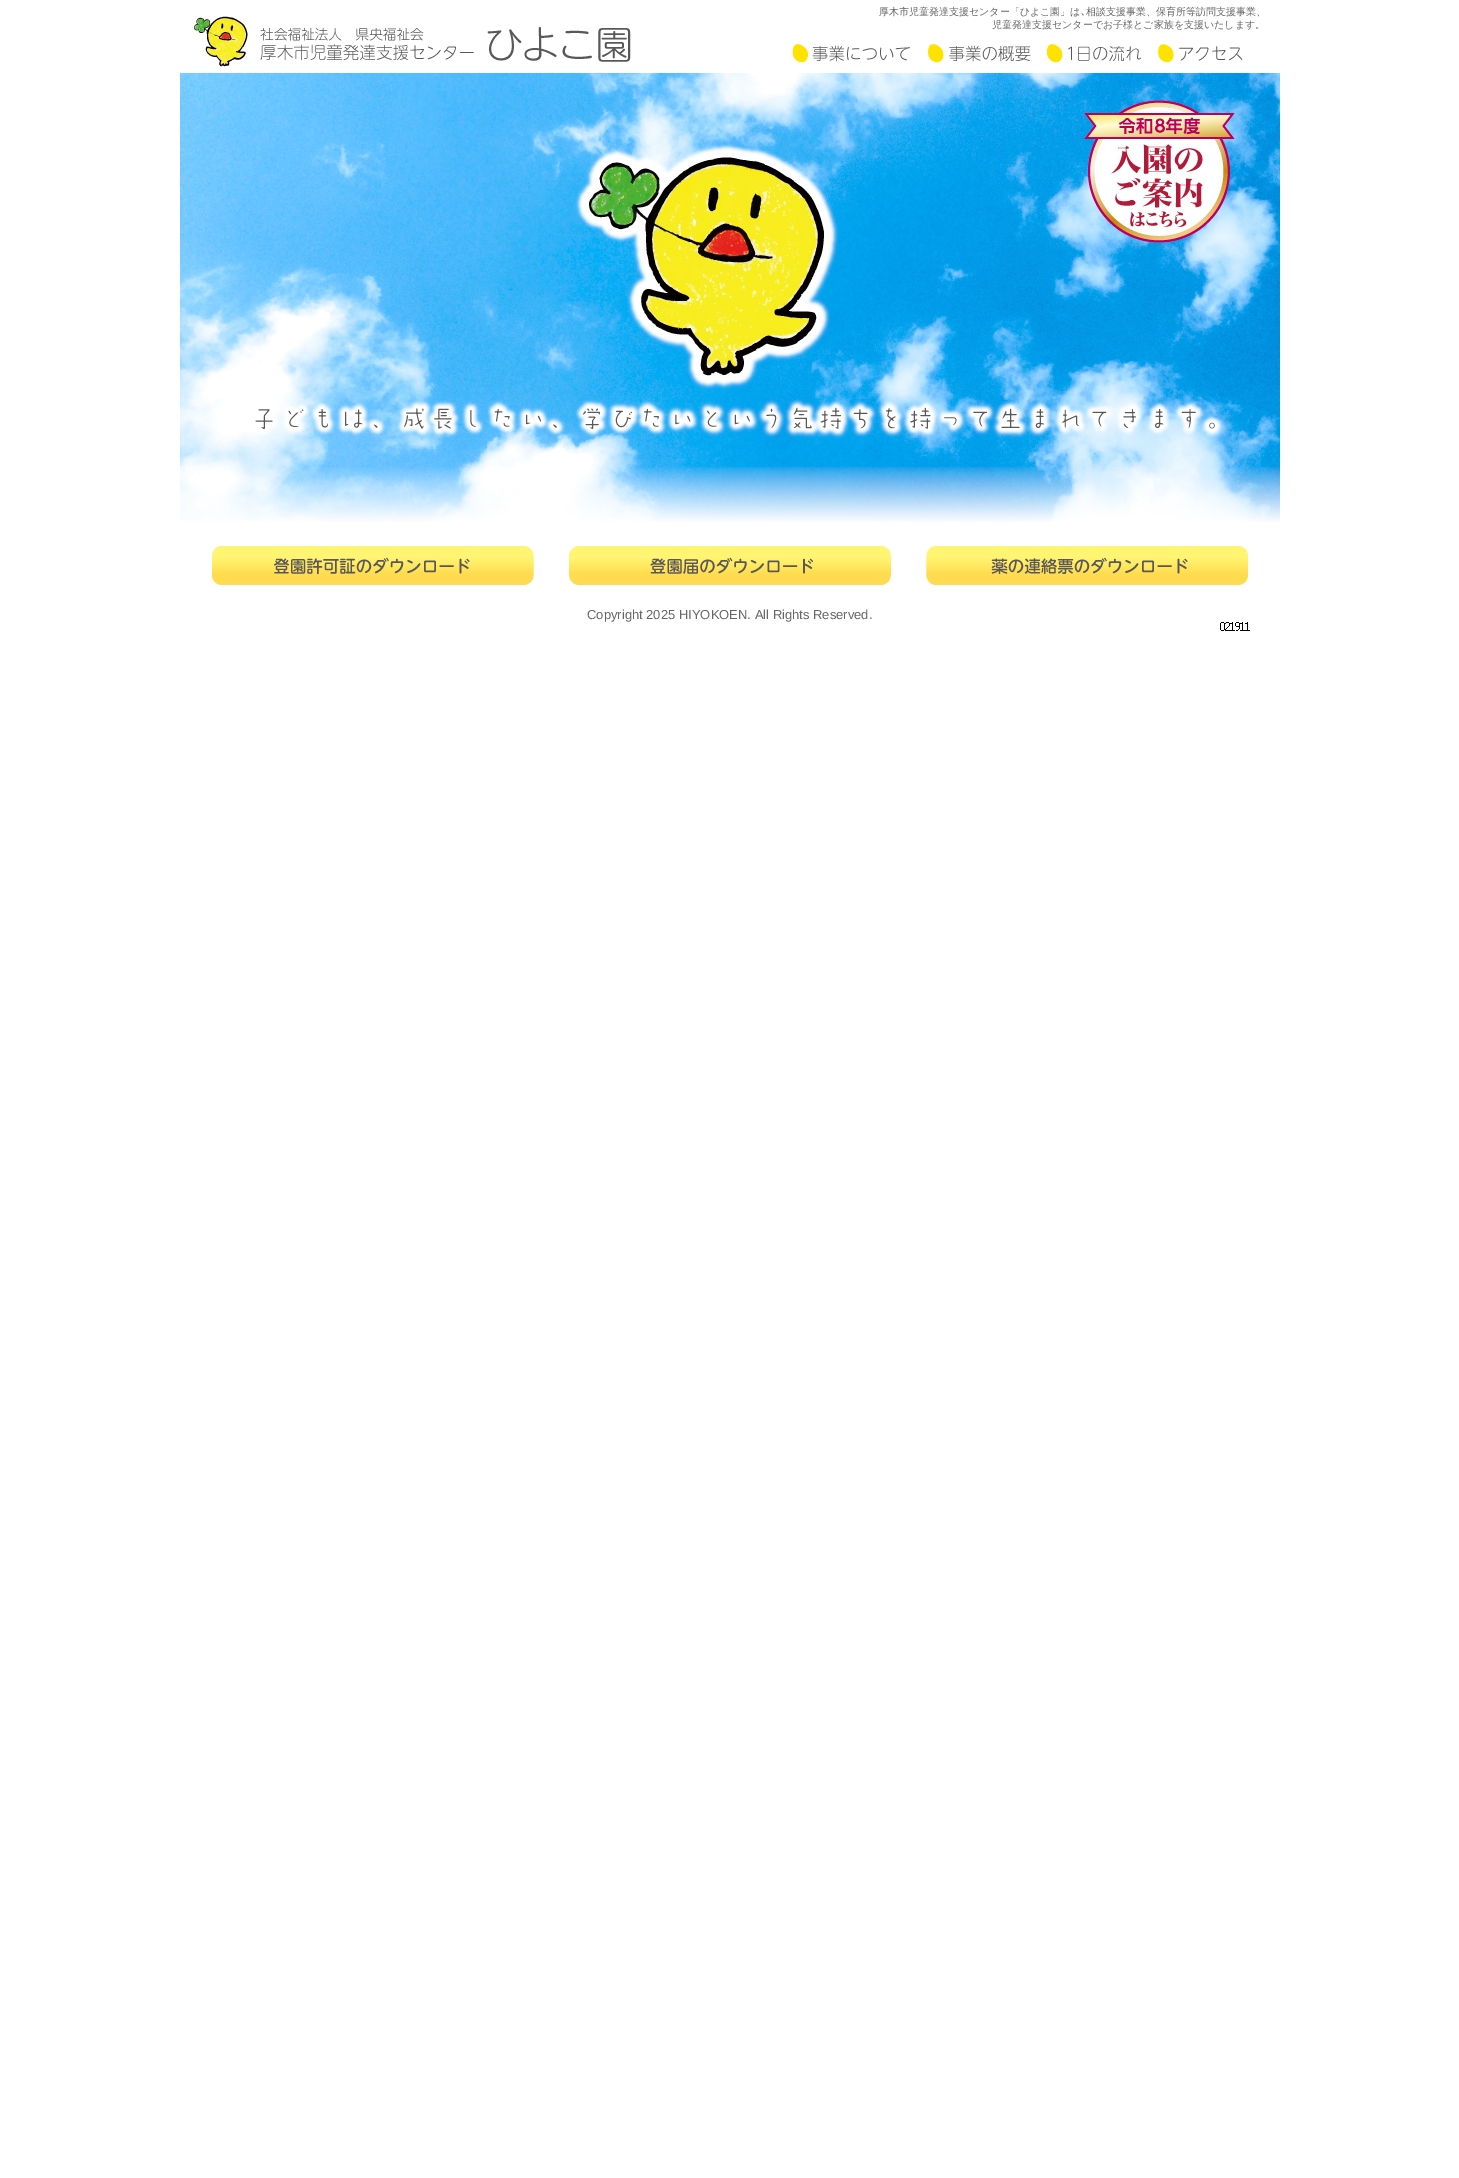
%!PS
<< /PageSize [1459 2178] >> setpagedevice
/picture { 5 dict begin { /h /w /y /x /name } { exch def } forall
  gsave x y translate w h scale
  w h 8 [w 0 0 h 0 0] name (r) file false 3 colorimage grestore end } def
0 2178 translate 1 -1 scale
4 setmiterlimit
1 setgray
0 0 1459 2178 rectfill
(img1.rgb) 194 16 437 51 picture
/WenQuanYiZenHei-Medium [10 0 0 -10 0 0] selectfont
0.4 setgray
879 15 moveto (厚木市児童発達支援センター「ひよこ園」は) show
/IPAGothic-Regular [10 0 0 -10 0 0] selectfont
1081 15 moveto (､) show
/WenQuanYiZenHei-Medium [10 0 0 -10 0 0] selectfont
1086 15 moveto (相談支援事業、保育所等訪問支援事業、) show
992 28 moveto (児童発達支援センターでお子様とご家族を支援いたします。) show
(img2.rgb) 792 44 118 19 picture
(img3.rgb) 928 44 103 19 picture
(img4.rgb) 1047 44 94 19 picture
(img5.rgb) 1158 44 85 19 picture
(img6.rgb) 180 73 4 448 picture
(img7.rgb) 184 70 1096 452 picture
(img8.rgb) 212 546 1036 39 picture
/LiberationSans-Regular [13 0 0 -13 0 0] selectfont
587 619 moveto (Copyright 2025 HIYOKOEN. All Rights Reserved.) show
(img9.rgb) 1220 622 30 9 picture
showpage
